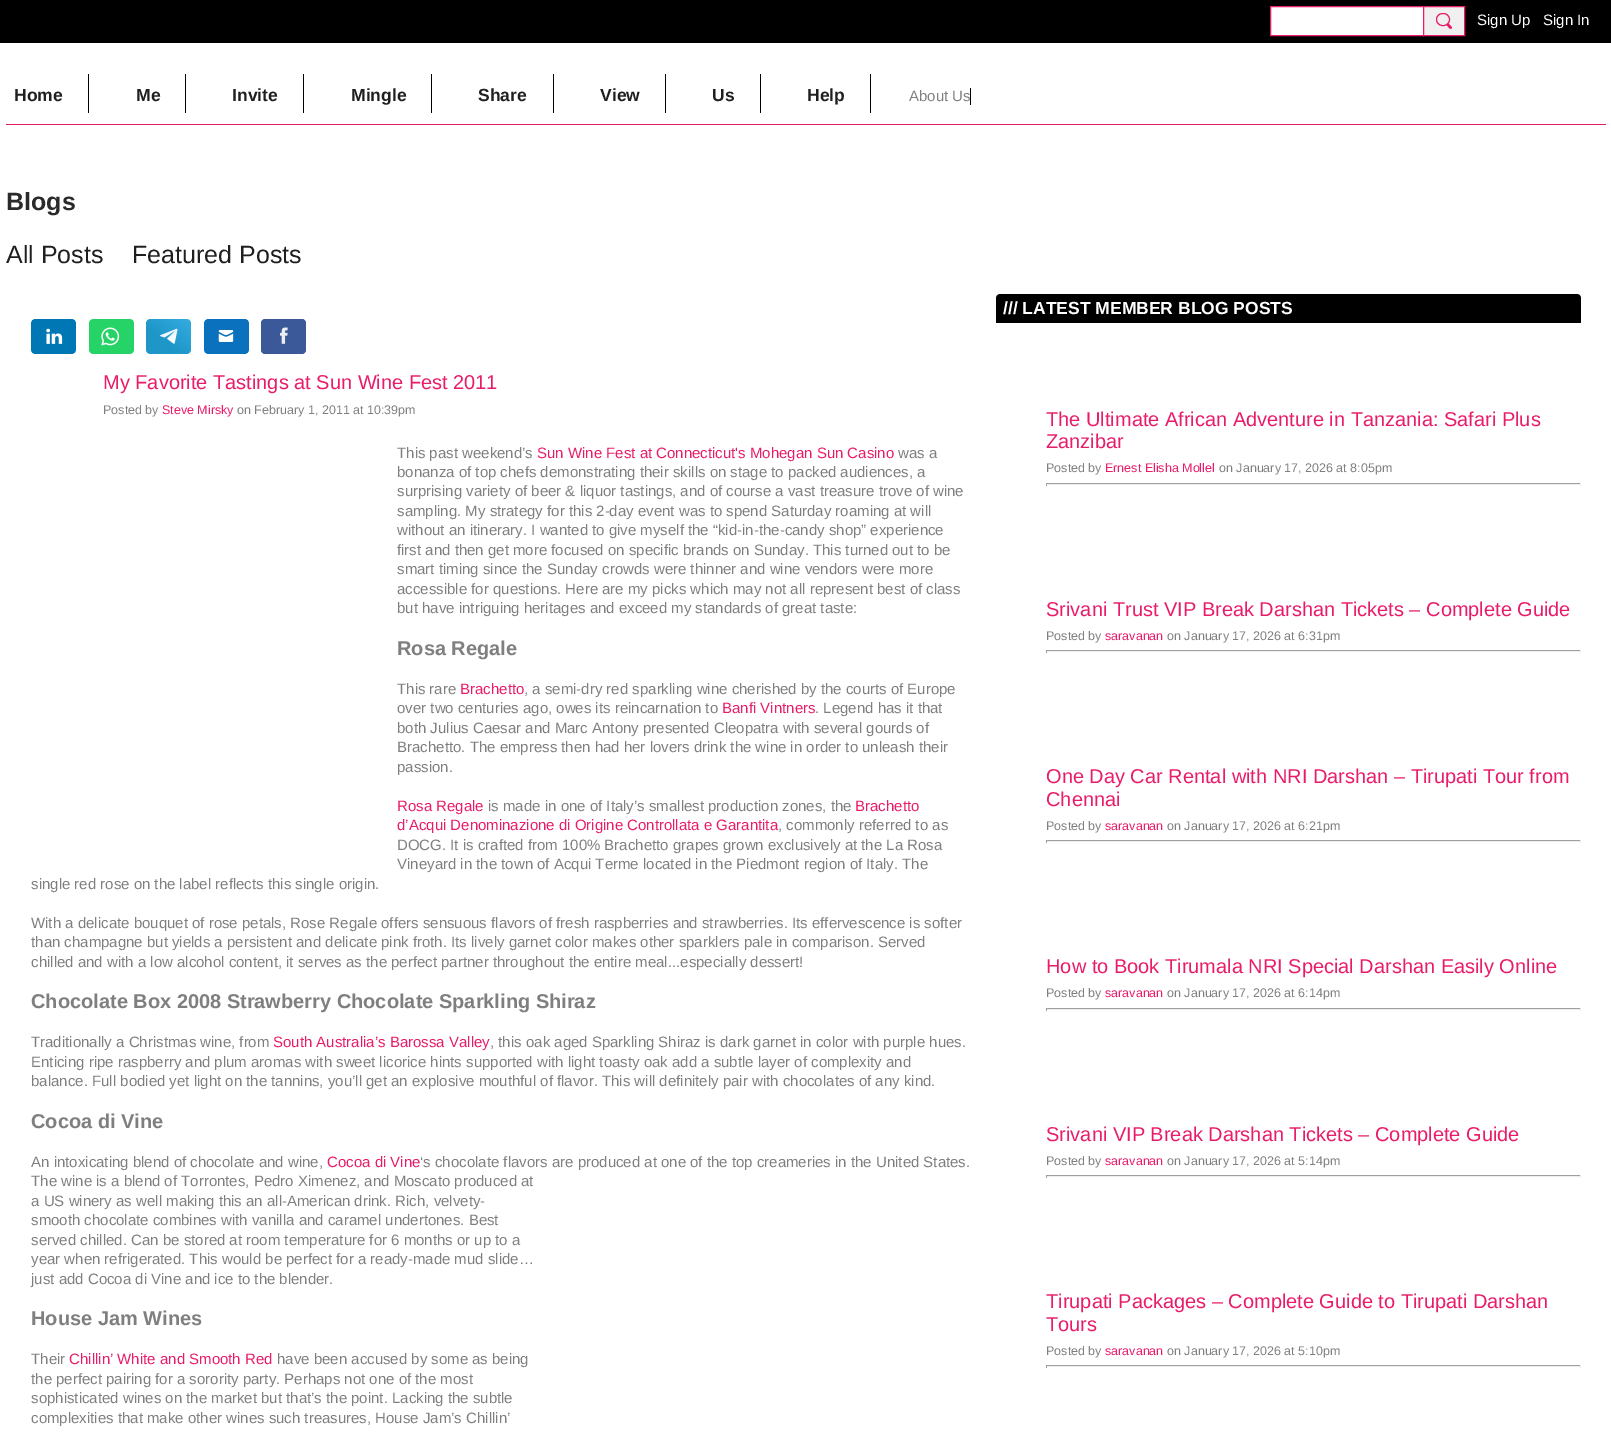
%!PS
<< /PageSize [1611 1438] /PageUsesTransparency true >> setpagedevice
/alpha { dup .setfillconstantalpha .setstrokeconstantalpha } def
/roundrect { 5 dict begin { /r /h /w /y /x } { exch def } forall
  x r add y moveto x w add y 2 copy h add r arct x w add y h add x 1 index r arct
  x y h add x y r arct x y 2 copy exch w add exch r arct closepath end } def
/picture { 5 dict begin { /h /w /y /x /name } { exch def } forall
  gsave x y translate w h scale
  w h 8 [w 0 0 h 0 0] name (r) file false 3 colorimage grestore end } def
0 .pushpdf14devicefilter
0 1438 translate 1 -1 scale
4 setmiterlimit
1 setgray
0 0 1611 1438 rectfill
0 setgray
0 0 1611 43 rectfill
1 setgray
newpath 1270.5 6.5 moveto 1423.5 6.5 lineto 1423.5 35.5 lineto 1270.5 35.5 lineto closepath gsave fill grestore
0.914 0.11 0.416 setrgbcolor
stroke
0.94 alpha
1 setgray
newpath 1423.5 6.5 moveto 1464.5 6.5 lineto 1464.5 35.5 lineto 1423.5 35.5 lineto closepath fill
1 alpha
0.914 0.11 0.416 setrgbcolor
newpath 1423.5 6.5 moveto 1464.5 6.5 lineto 1464.5 35.5 lineto 1423.5 35.5 lineto closepath stroke
1436.5 13.5 13 12 6 roundrect stroke
newpath 1449 24 moveto 1451 26 lineto 1453 28 1451 29.5 1449.5 28.5 curveto 1447 25.5 lineto 1446 24.5 1448 23 1449 24 curveto closepath fill
/LiberationSans-Regular [15 0 0 -15 0 0] selectfont
1 setgray
1477 25 moveto (Sign Up) show
1543 25 moveto (Sign In) show
0.914 0.11 0.416 setrgbcolor
6 124 1600 1 rectfill
0 setgray
88 74 1 39 rectfill
/LiberationSans-Bold [17.5 0 0 -17.5 0 0] selectfont
0.122 setgray
14 101 moveto (Home) show
0 setgray
185 74 1 39 rectfill
0.122 setgray
136 101 moveto (Me) show
0 setgray
303 74 1 39 rectfill
0.122 setgray
232 101 moveto (Invite) show
0 setgray
431 74 1 39 rectfill
0.122 setgray
351 101 moveto (Mingle) show
0 setgray
553 74 1 39 rectfill
0.122 setgray
478 101 moveto (Share) show
0 setgray
665 74 1 39 rectfill
0.122 setgray
600 101 moveto (View) show
0 setgray
760 74 1 39 rectfill
0.122 setgray
712 101 moveto (Us) show
0 setgray
870 74 1 39 rectfill
0.122 setgray
807 101 moveto (Help) show
/LiberationSans-Regular [15 0 0 -15 0 0] selectfont
0.498 setgray
909 101 moveto (About Us) show
0 setgray
970 88 1 17 rectfill
/LiberationSans-Bold [25 0 0 -25 0 0] selectfont
0.165 setgray
6 210 moveto (Blogs) show
/LiberationSans-Regular [25 0 0 -25 0 0] selectfont
0.122 setgray
6 263 moveto (All Posts) show
132 263 moveto (Featured Posts) show
(img1.rgb) 31 319 45 35 picture
(img2.rgb) 89 319 45 35 picture
(img3.rgb) 146 319 45 35 picture
(img4.rgb) 204 319 45 35 picture
0.231 0.349 0.596 setrgbcolor
261 319 45 35 4 roundrect fill
(img5.rgb) 261 319 45 35 picture
/LiberationSans-Regular [20 0 0 -20 0 0] selectfont
0.914 0.11 0.416 setrgbcolor
103 389 moveto (My Favorite Tastings at Sun Wine Fest 2011) show
/LiberationSans-Regular [12.5 0 0 -12.5 0 0] selectfont
0.498 setgray
103 414 moveto (Posted by) show
0.914 0.11 0.416 setrgbcolor
162 414 moveto (Steve Mirsky) show
0.498 setgray
237 414 moveto (on February 1, 2011 at 10:39pm) show
/LiberationSans-Regular [15 0 0 -15 0 0] selectfont
397 458 moveto (This past weekend’s) show
0.914 0.11 0.416 setrgbcolor
537 458 moveto (Sun Wine Fest at Connecticut's Mohegan Sun Casino) show
0.498 setgray
898 458 moveto (was a) show
397 477 moveto (bonanza of top chefs demonstrating their skills on stage to packed audiences, a) show
397 496 moveto (surprising variety of beer & liquor tastings, and of course a vast treasure trove of wine) show
397 516 moveto (sampling. My strategy for this 2-day event was to spend Saturday roaming at will) show
397 535 moveto (without an itinerary. I wanted to give myself the “kid-in-the-candy shop” experience) show
397 555 moveto (first and then get more focused on specific brands on Sunday. This turned out to be) show
397 574 moveto (smart timing since the Sunday crowds were thinner and wine vendors were more) show
397 594 moveto (accessible for questions. Here are my picks which may not all represent best of class) show
397 613 moveto (but have intriguing heritages and exceed my standards of great taste:) show
/LiberationSans-Bold [20 0 0 -20 0 0] selectfont
397 655 moveto (Rosa Regale) show
/LiberationSans-Regular [15 0 0 -15 0 0] selectfont
397 694 moveto (This rare) show
0.914 0.11 0.416 setrgbcolor
460 694 moveto (Brachetto) show
0.498 setgray
524 694 moveto (, a semi-dry red sparkling wine cherished by the courts of Europe) show
397 713 moveto (over two centuries ago, owes its reincarnation to) show
0.914 0.11 0.416 setrgbcolor
722 713 moveto (Banfi Vintners) show
0.498 setgray
815 713 moveto (. Legend has it that) show
397 733 moveto (both Julius Caesar and Marc Antony presented Cleopatra with several gourds of) show
397 752 moveto (Brachetto. The empress then had her lovers drink the wine in order to unleash their) show
397 772 moveto (passion.) show
0.914 0.11 0.416 setrgbcolor
397 811 moveto (Rosa Regale) show
0.498 setgray
488 811 moveto (is made in one of Italy’s smallest production zones, the) show
0.914 0.11 0.416 setrgbcolor
855 811 moveto (Brachetto) show
397 830 moveto (d’Acqui Denominazione di Origine Controllata e Garantita) show
0.498 setgray
778 830 moveto (, commonly referred to as) show
397 850 moveto (DOCG. It is crafted from 100% Brachetto grapes grown exclusively at the La Rosa) show
397 869 moveto (Vineyard in the town of Acqui Terme located in the Piedmont region of Italy. The) show
31 889 moveto (single red rose on the label reflects this single origin.) show
31 928 moveto (With a delicate bouquet of rose petals, Rose Regale offers sensuous flavors of fresh raspberries and strawberries. Its effervescence is softer) show
31 947 moveto (than champagne but yields a persistent and delicate pink froth. Its lively garnet color makes other sparklers pale in comparison. Served) show
31 967 moveto (chilled and with a low alcohol content, it serves as the perfect partner throughout the entire meal...especially dessert!) show
/LiberationSans-Bold [20 0 0 -20 0 0] selectfont
31 1008 moveto (Chocolate Box 2008 Strawberry Chocolate Sparkling Shiraz) show
/LiberationSans-Regular [15 0 0 -15 0 0] selectfont
31 1047 moveto (Traditionally a Christmas wine, from) show
0.914 0.11 0.416 setrgbcolor
273 1047 moveto (South Australia’s Barossa Valley) show
0.498 setgray
490 1047 moveto (, this oak aged Sparkling Shiraz is dark garnet in color with purple hues.) show
31 1067 moveto (Enticing ripe raspberry and plum aromas with sweet licorice hints supported with light toasty oak add a subtle layer of complexity and) show
31 1086 moveto (balance. Full bodied yet light on the tannins, you’ll get an explosive mouthful of flavor. This will definitely pair with chocolates of any kind.) show
/LiberationSans-Bold [20 0 0 -20 0 0] selectfont
31 1128 moveto (Cocoa di Vine) show
/LiberationSans-Regular [15 0 0 -15 0 0] selectfont
31 1167 moveto (An intoxicating blend of chocolate and wine,) show
0.914 0.11 0.416 setrgbcolor
327 1167 moveto (Cocoa di Vine) show
0.498 setgray
420 1167 moveto (‘s chocolate flavors are produced at one of the top creameries in the United States.) show
31 1186 moveto (The wine is a blend of Torrontes, Pedro Ximenez, and Moscato produced at) show
31 1206 moveto (a US winery as well making this an all-American drink. Rich, velvety-) show
31 1225 moveto (smooth chocolate combines with vanilla and caramel undertones. Best) show
31 1245 moveto (served chilled. Can be stored at room temperature for 6 months or up to a) show
31 1264 moveto (year when refrigerated. This would be perfect for a ready-made mud slide…) show
31 1284 moveto (just add Cocoa di Vine and ice to the blender.) show
/LiberationSans-Bold [20 0 0 -20 0 0] selectfont
31 1325 moveto (House Jam Wines) show
/LiberationSans-Regular [15 0 0 -15 0 0] selectfont
31 1364 moveto (Their) show
0.914 0.11 0.416 setrgbcolor
69 1364 moveto (Chillin’ White and Smooth Red) show
0.498 setgray
277 1364 moveto (have been accused by some as being) show
31 1384 moveto (the perfect pairing for a sorority party. Perhaps not one of the most) show
31 1403 moveto (sophisticated wines on the market but that’s the point. Lacking the subtle) show
31 1423 moveto (complexities that make other wines such treasures, House Jam’s Chillin’) show
0 setgray
newpath 1000 294 moveto 1577 294 lineto 1579 294 1581 296 1581 298 curveto 1581 323 lineto 996 323 lineto 996 298 lineto 996 296 998 294 1000 294 curveto closepath fill
/LiberationSans-Bold [17.5 0 0 -17.5 0 0] selectfont
1 setgray
1003 314 moveto (/// LATEST MEMBER BLOG POSTS) show
/LiberationSans-Regular [20 0 0 -20 0 0] selectfont
0.914 0.11 0.416 setrgbcolor
1046 426 moveto (The Ultimate African Adventure in Tanzania: Safari Plus) show
1046 448 moveto (Zanzibar) show
/LiberationSans-Regular [12.5 0 0 -12.5 0 0] selectfont
0.498 setgray
1046 472 moveto (Posted by) show
0.914 0.11 0.416 setrgbcolor
1105 472 moveto (Ernest Elisha Mollel) show
0.498 setgray
1219 472 moveto (on January 17, 2026 at 8:05pm) show
0.624 setgray
1046 483 535 1 rectfill
0.933 setgray
1580 483 1 3 rectfill
1046 484 535 1 rectfill
0.624 setgray
1046 483 1 3 rectfill
/LiberationSans-Regular [20 0 0 -20 0 0] selectfont
0.914 0.11 0.416 setrgbcolor
1046 616 moveto (Srivani Trust VIP Break Darshan Tickets – Complete Guide) show
/LiberationSans-Regular [12.5 0 0 -12.5 0 0] selectfont
0.498 setgray
1046 640 moveto (Posted by) show
0.914 0.11 0.416 setrgbcolor
1105 640 moveto (saravanan) show
0.498 setgray
1167 640 moveto (on January 17, 2026 at 6:31pm) show
0.624 setgray
1046 650 535 1 rectfill
0.933 setgray
1580 650 1 3 rectfill
1046 651 535 1 rectfill
0.624 setgray
1046 650 1 3 rectfill
/LiberationSans-Regular [20 0 0 -20 0 0] selectfont
0.914 0.11 0.416 setrgbcolor
1046 783 moveto (One Day Car Rental with NRI Darshan – Tirupati Tour from) show
1046 806 moveto (Chennai) show
/LiberationSans-Regular [12.5 0 0 -12.5 0 0] selectfont
0.498 setgray
1046 830 moveto (Posted by) show
0.914 0.11 0.416 setrgbcolor
1105 830 moveto (saravanan) show
0.498 setgray
1167 830 moveto (on January 17, 2026 at 6:21pm) show
0.624 setgray
1046 840 535 1 rectfill
0.933 setgray
1580 840 1 3 rectfill
1046 841 535 1 rectfill
0.624 setgray
1046 840 1 3 rectfill
/LiberationSans-Regular [20 0 0 -20 0 0] selectfont
0.914 0.11 0.416 setrgbcolor
1046 973 moveto (How to Book Tirumala NRI Special Darshan Easily Online) show
/LiberationSans-Regular [12.5 0 0 -12.5 0 0] selectfont
0.498 setgray
1046 997 moveto (Posted by) show
0.914 0.11 0.416 setrgbcolor
1105 997 moveto (saravanan) show
0.498 setgray
1167 997 moveto (on January 17, 2026 at 6:14pm) show
0.624 setgray
1046 1008 535 1 rectfill
0.933 setgray
1580 1008 1 3 rectfill
1046 1009 535 1 rectfill
0.624 setgray
1046 1008 1 3 rectfill
/LiberationSans-Regular [20 0 0 -20 0 0] selectfont
0.914 0.11 0.416 setrgbcolor
1046 1141 moveto (Srivani VIP Break Darshan Tickets – Complete Guide) show
/LiberationSans-Regular [12.5 0 0 -12.5 0 0] selectfont
0.498 setgray
1046 1165 moveto (Posted by) show
0.914 0.11 0.416 setrgbcolor
1105 1165 moveto (saravanan) show
0.498 setgray
1167 1165 moveto (on January 17, 2026 at 5:14pm) show
0.624 setgray
1046 1175 535 1 rectfill
0.933 setgray
1580 1175 1 3 rectfill
1046 1176 535 1 rectfill
0.624 setgray
1046 1175 1 3 rectfill
/LiberationSans-Regular [20 0 0 -20 0 0] selectfont
0.914 0.11 0.416 setrgbcolor
1046 1308 moveto (Tirupati Packages – Complete Guide to Tirupati Darshan) show
1046 1331 moveto (Tours) show
/LiberationSans-Regular [12.5 0 0 -12.5 0 0] selectfont
0.498 setgray
1046 1355 moveto (Posted by) show
0.914 0.11 0.416 setrgbcolor
1105 1355 moveto (saravanan) show
0.498 setgray
1167 1355 moveto (on January 17, 2026 at 5:10pm) show
0.624 setgray
1046 1365 535 1 rectfill
0.933 setgray
1580 1365 1 3 rectfill
1046 1366 535 1 rectfill
0.624 setgray
1046 1365 1 3 rectfill
.poppdf14devicefilter showpage
